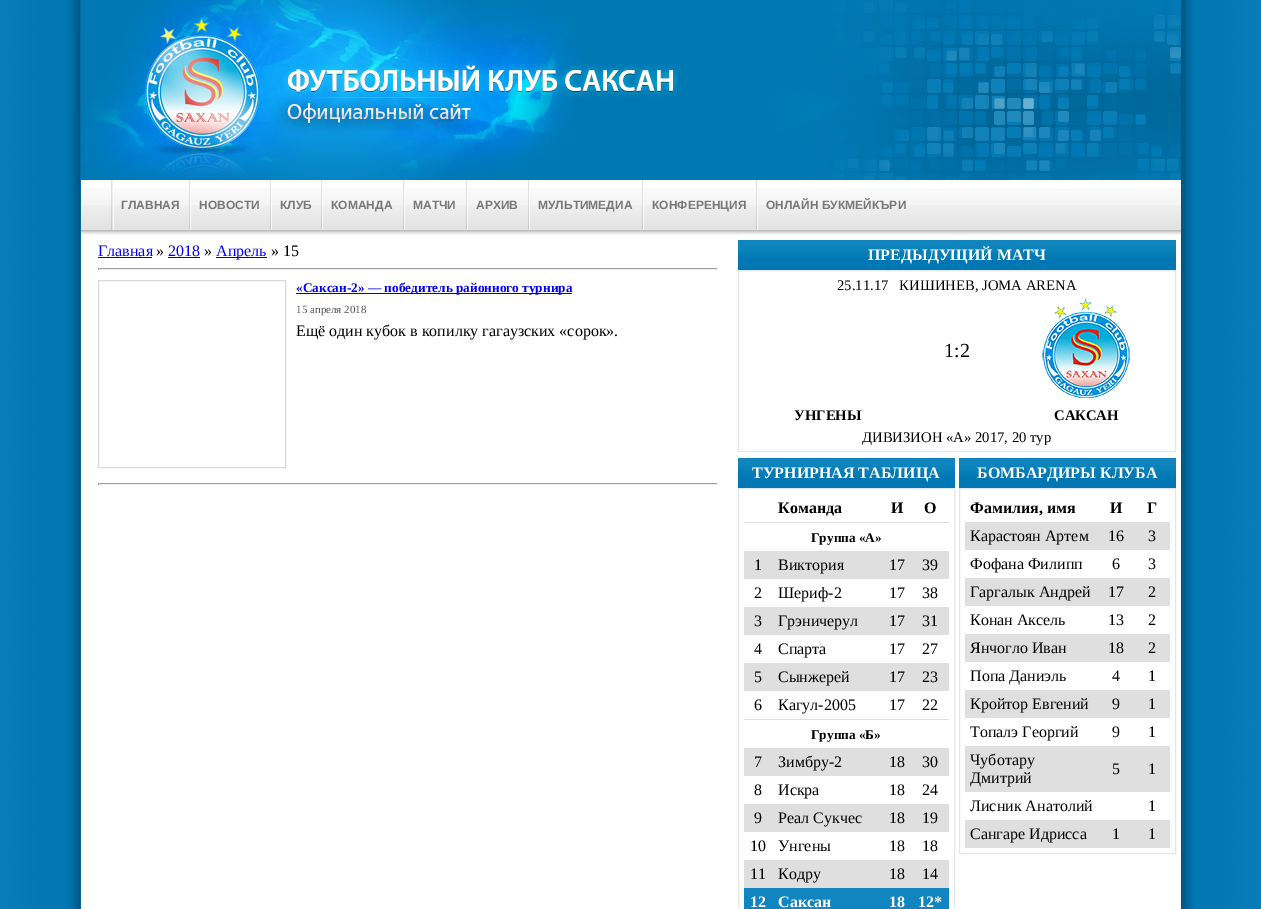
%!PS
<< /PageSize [1261 909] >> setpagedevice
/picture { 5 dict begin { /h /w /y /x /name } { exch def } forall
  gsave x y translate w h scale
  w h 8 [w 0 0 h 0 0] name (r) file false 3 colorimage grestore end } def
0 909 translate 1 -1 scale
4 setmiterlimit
1 setgray
0 0 1261 909 rectfill
(img1.rgb) 0 0 81 909 picture
(img2.rgb) 81 0 1100 180 picture
(img3.rgb) 81 188 1100 47 picture
(img4.rgb) 111 180 3 50 picture
/LiberationSans-Bold [12 0 0 -12 0 0] selectfont
0.471 setgray
121 209 moveto (ГЛАВНАЯ) show
(img5.rgb) 189 180 2 50 picture
199 209 moveto (НОВОСТИ) show
(img5.rgb) 270 180 2 50 picture
280 209 moveto (КЛУБ) show
(img5.rgb) 321 180 2 50 picture
331 209 moveto (КОМАНДА) show
(img5.rgb) 403 180 2 50 picture
413 209 moveto (МАТЧИ) show
(img5.rgb) 466 180 2 50 picture
476 209 moveto (АРХИВ) show
(img5.rgb) 528 180 2 50 picture
538 209 moveto (МУЛЬТИМЕДИА) show
(img5.rgb) 642 180 2 50 picture
652 209 moveto (КОНФЕРЕНЦИЯ) show
(img5.rgb) 756 180 2 50 picture
766 209 moveto (ОНЛАЙН БУКМЕЙКЪРИ) show
/LiberationSerif-Regular [16 0 0 -16 0 0] selectfont
0 0 0.933 setrgbcolor
98 256 moveto (Главная) show
98 257 54 1 rectfill
0 setgray
156 256 moveto (») show
0 0 0.933 setrgbcolor
168 256 moveto (2018) show
168 257 32 1 rectfill
0 setgray
204 256 moveto (») show
0 0 0.933 setrgbcolor
216 257 51 1 rectfill
216 256 moveto (Апрель) show
0 setgray
271 256 moveto (» 15) show
0.624 setgray
98 268 620 1 rectfill
0.933 setgray
717 268 1 2 rectfill
98 269 620 1 rectfill
0.624 setgray
98 268 1 2 rectfill
0.855 setgray
98.5 280.5 187 187 rectstroke
0 0 0.933 setrgbcolor
296 293 276 1 rectfill
/LiberationSerif-Bold [13.3 0 0 -13.3 0 0] selectfont
296 292 moveto («Саксан-2» — победитель районного турнира) show
/LiberationSerif-Regular [11 0 0 -11 0 0] selectfont
0.333 setgray
296 313 moveto (15 апреля 2018) show
/LiberationSerif-Regular [16 0 0 -16 0 0] selectfont
0 setgray
296 336 moveto (Ещё один кубок в копилку гагаузских «сорок».) show
0.624 setgray
98 483 620 1 rectfill
0.933 setgray
717 483 1 2 rectfill
98 484 620 1 rectfill
0.624 setgray
98 483 1 2 rectfill
(img6.rgb) 738 240 438 30 picture
/LiberationSerif-Bold [16 0 0 -16 0 0] selectfont
1 setgray
868 260 moveto (ПРЕДЫДУЩИЙ МАТЧ) show
0.882 0.906 0.922 setrgbcolor
738.5 270.5 437 181 rectstroke
/LiberationSerif-Regular [14.7 0 0 -14.7 0 0] selectfont
0 setgray
837 290 moveto (25.11.17   КИШИНЕВ, JOMA ARENA) show
/LiberationSerif-Regular [20 0 0 -20 0 0] selectfont
944 357 moveto (1:2) show
(img7.rgb) 1042 298 88 100 picture
/LiberationSerif-Bold [14.7 0 0 -14.7 0 0] selectfont
794 420 moveto (УНГЕНЫ) show
1054 420 moveto (САКСАН) show
/LiberationSerif-Regular [14.7 0 0 -14.7 0 0] selectfont
862 442 moveto (ДИВИЗИОН «А» 2017, 20 тур) show
(img8.rgb) 738 458 217 30 picture
/LiberationSerif-Bold [16 0 0 -16 0 0] selectfont
1 setgray
752 478 moveto (ТУРНИРНАЯ ТАБЛИЦА) show
0.882 0.906 0.922 setrgbcolor
738.5 488.5 216 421 rectstroke
0 setgray
778 513 moveto (Команда) show
891 513 moveto (И) show
924 513 moveto (О) show
0.875 setgray
744 522 205 1 rectfill
/LiberationSerif-Bold [13.3 0 0 -13.3 0 0] selectfont
0 setgray
811 542 moveto (Группа «А») show
0.875 setgray
744 551 205 28 rectfill
/LiberationSerif-Regular [16 0 0 -16 0 0] selectfont
0 setgray
754 570 moveto (1) show
778 570 moveto (Виктория) show
889 570 moveto (17) show
922 570 moveto (39) show
754 598 moveto (2) show
778 598 moveto (Шериф-2) show
889 598 moveto (17) show
922 598 moveto (38) show
0.875 setgray
744 607 205 28 rectfill
0 setgray
754 626 moveto (3) show
778 626 moveto (Грэничерул) show
889 626 moveto (17) show
922 626 moveto (31) show
754 654 moveto (4) show
778 654 moveto (Спарта) show
889 654 moveto (17) show
922 654 moveto (27) show
0.875 setgray
744 663 205 28 rectfill
0 setgray
754 682 moveto (5) show
778 682 moveto (Сынжерей) show
889 682 moveto (17) show
922 682 moveto (23) show
754 710 moveto (6) show
778 710 moveto (Кагул-2005) show
889 710 moveto (17) show
922 710 moveto (22) show
0.875 setgray
744 719 205 1 rectfill
/LiberationSerif-Bold [13.3 0 0 -13.3 0 0] selectfont
0 setgray
811 739 moveto (Группа «Б») show
0.875 setgray
744 748 205 28 rectfill
/LiberationSerif-Regular [16 0 0 -16 0 0] selectfont
0 setgray
754 767 moveto (7) show
778 767 moveto (Зимбру-2) show
889 767 moveto (18) show
922 767 moveto (30) show
754 795 moveto (8) show
778 795 moveto (Искра) show
889 795 moveto (18) show
922 795 moveto (24) show
0.875 setgray
744 804 205 28 rectfill
0 setgray
754 823 moveto (9) show
778 823 moveto (Реал Сукчес) show
889 823 moveto (18) show
922 823 moveto (19) show
750 851 moveto (10) show
778 851 moveto (Унгены) show
889 851 moveto (18) show
922 851 moveto (18) show
0.875 setgray
744 860 205 28 rectfill
0 setgray
750 879 moveto (11) show
778 879 moveto (Кодру) show
889 879 moveto (18) show
922 879 moveto (14) show
0.067 0.522 0.749 setrgbcolor
744 888 205 21 rectfill
/LiberationSerif-Bold [16 0 0 -16 0 0] selectfont
1 setgray
750 907 moveto (12) show
778 907 moveto (Саксан) show
889 907 moveto (18) show
918 907 moveto (12*) show
(img8.rgb) 959 458 217 30 picture
977 478 moveto (БОМБАРДИРЫ КЛУБА) show
0.882 0.906 0.922 setrgbcolor
959.5 488.5 216 365 rectstroke
0 setgray
970 513 moveto (Фамилия, имя) show
1110 513 moveto (И) show
1147 513 moveto (Г) show
0.875 setgray
965 522 205 28 rectfill
/LiberationSerif-Regular [16 0 0 -16 0 0] selectfont
0 setgray
970 541 moveto (Карастоян Артем) show
1108 541 moveto (16) show
1148 541 moveto (3) show
970 569 moveto (Фофана Филипп) show
1112 569 moveto (6) show
1148 569 moveto (3) show
0.875 setgray
965 578 205 28 rectfill
0 setgray
970 597 moveto (Гаргалык Андрей) show
1108 597 moveto (17) show
1148 597 moveto (2) show
970 625 moveto (Конан Аксель) show
1108 625 moveto (13) show
1148 625 moveto (2) show
0.875 setgray
965 634 205 28 rectfill
0 setgray
970 653 moveto (Янчогло Иван) show
1108 653 moveto (18) show
1148 653 moveto (2) show
970 681 moveto (Попа Даниэль) show
1112 681 moveto (4) show
1148 681 moveto (1) show
0.875 setgray
965 690 205 28 rectfill
0 setgray
970 709 moveto (Кройтор Евгений) show
1112 709 moveto (9) show
1148 709 moveto (1) show
970 737 moveto (Топалэ Георгий) show
1112 737 moveto (9) show
1148 737 moveto (1) show
0.875 setgray
965 746 205 46 rectfill
0 setgray
970 765 moveto (Чуботару) show
970 783 moveto (Дмитрий) show
1112 774 moveto (5) show
1148 774 moveto (1) show
970 811 moveto (Лисник Анатолий) show
1148 811 moveto (1) show
0.875 setgray
965 820 205 28 rectfill
0 setgray
970 839 moveto (Сангаре Идрисса) show
1112 839 moveto (1) show
1148 839 moveto (1) show
(img9.rgb) 1181 0 80 909 picture
showpage
